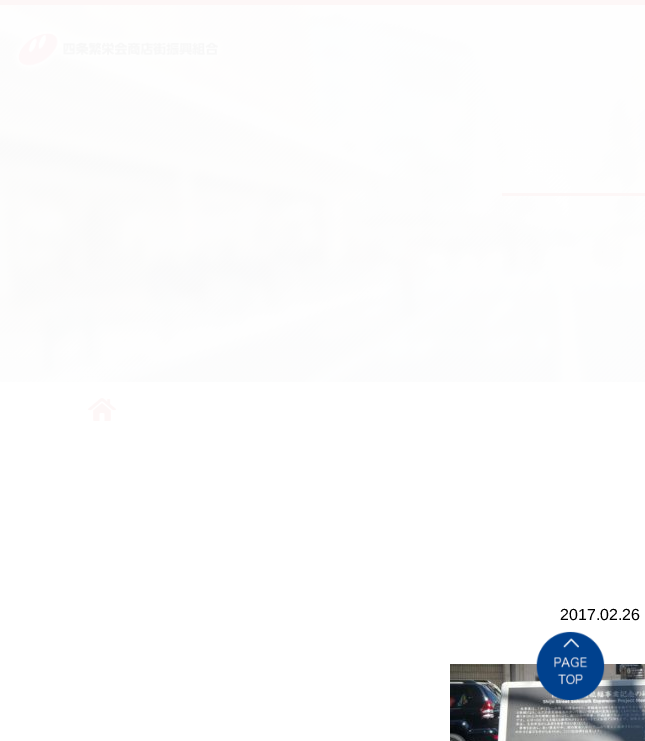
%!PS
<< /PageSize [645 741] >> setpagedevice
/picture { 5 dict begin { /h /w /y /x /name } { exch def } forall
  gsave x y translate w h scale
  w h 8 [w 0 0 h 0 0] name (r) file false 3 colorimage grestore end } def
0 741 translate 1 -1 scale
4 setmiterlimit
1 setgray
0 0 645 741 rectfill
0.992 0.969 0.969 setrgbcolor
0 0 645 5 rectfill
(img2.rgb) 0 5 645 377 picture
(img3.rgb) 0 5 645 377 picture
(img1.rgb) 12 28 211 44 picture
502 193 143 3 rectfill
(img4.rgb) 88 398 28 23 picture
/LiberationSans-Regular [16 0 0 -16 0 0] selectfont
0 setgray
560 620 moveto (2017.02.26) show
(img5.rgb) 450 664 195 77 picture
(img6.rgb) 536 631 69 70 picture
showpage
